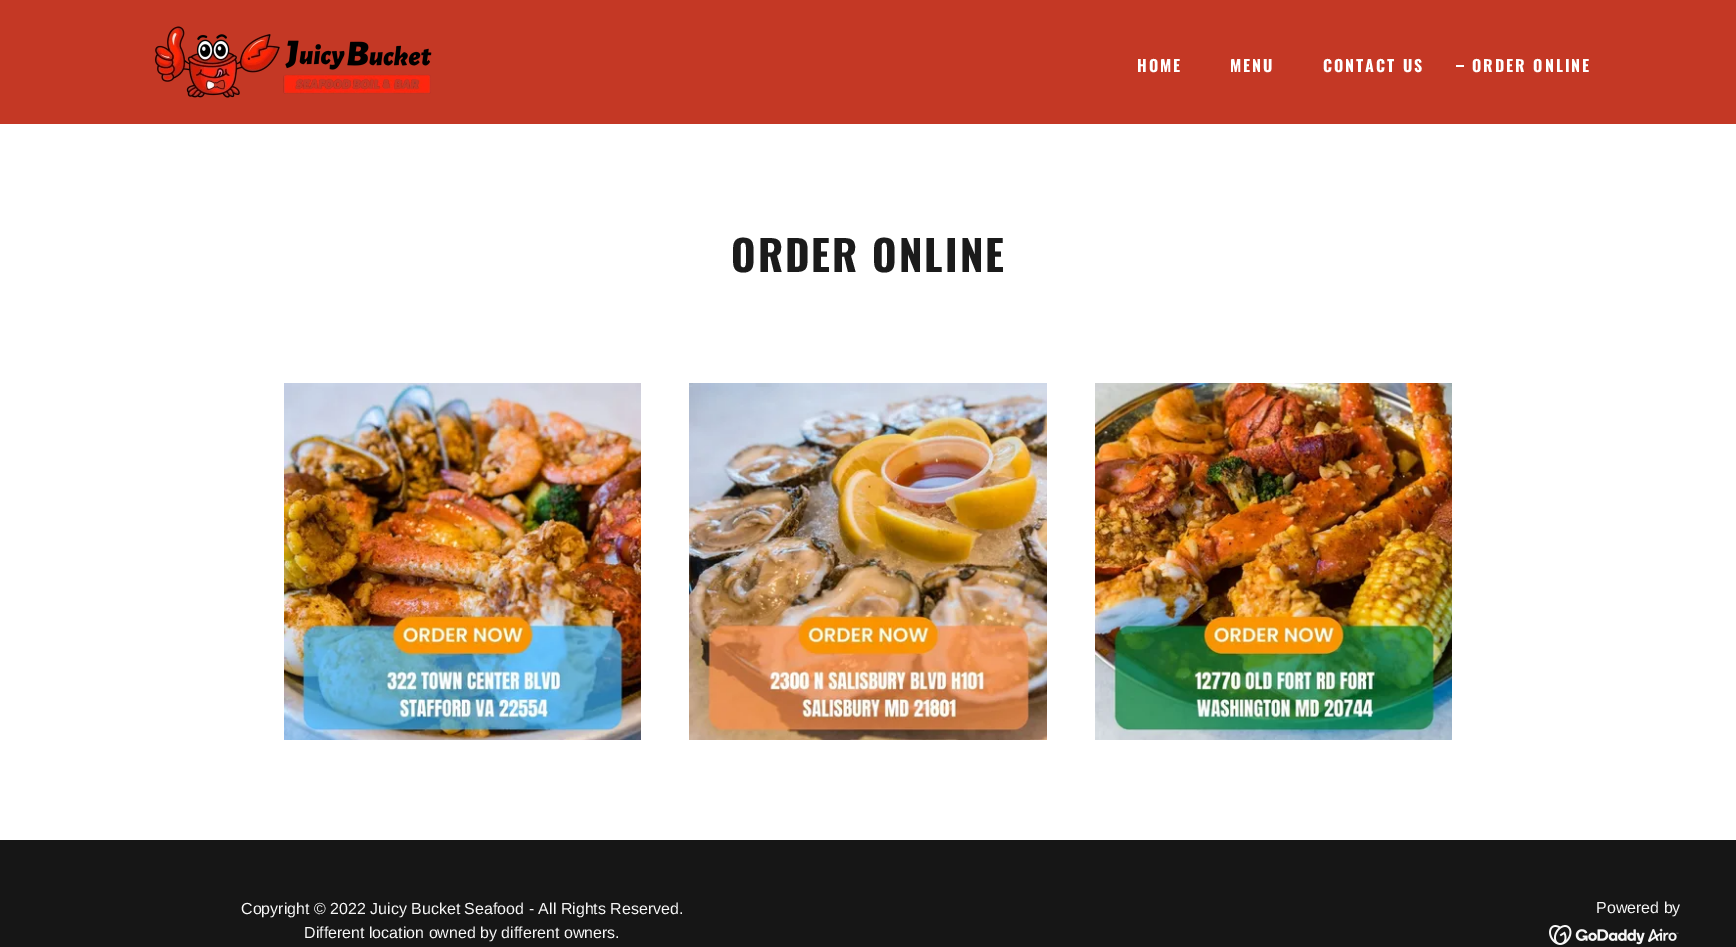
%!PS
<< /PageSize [1736 947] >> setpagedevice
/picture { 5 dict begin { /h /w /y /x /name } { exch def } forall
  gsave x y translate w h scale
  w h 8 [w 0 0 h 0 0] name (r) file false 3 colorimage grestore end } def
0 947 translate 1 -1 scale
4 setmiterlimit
0.086 setgray
0 0 1736 947 rectfill
0.769 0.22 0.145 setrgbcolor
0 0 1736 124 rectfill
(img1.rgb) 154 26 278 72 picture
/Oswald-Bold [16 0 0 -16 0 0] selectfont
1 setgray
1137 72 moveto 2 0 (HOME) ashow
1230 72 moveto 2 0 (MENU) ashow
1323 72 moveto 2 0 (CONTACT US) ashow
1456 65 8 2 rectfill
1472 72 moveto 2 0 (ORDER ONLINE) ashow
0 124 1736 716 rectfill
/Oswald-Bold [42 0 0 -42 0 0] selectfont
0.106 setgray
731 272 moveto 2 0 (ORDER ONLINE) ashow
(img2.rgb) 284 383 357 357 picture
(img3.rgb) 689 383 358 357 picture
(img4.rgb) 1095 383 357 357 picture
/LiberationSans-Regular [16 0 0 -16 0 0] selectfont
0.969 setgray
241 914 moveto (Copyright © 2022 Juicy Bucket Seafood - All Rights Reserved.) show
304 938 moveto (Different location owned by different owners.) show
1596 913 moveto (Powered by) show
(img5.rgb) 1549 925 130 20 picture
showpage
